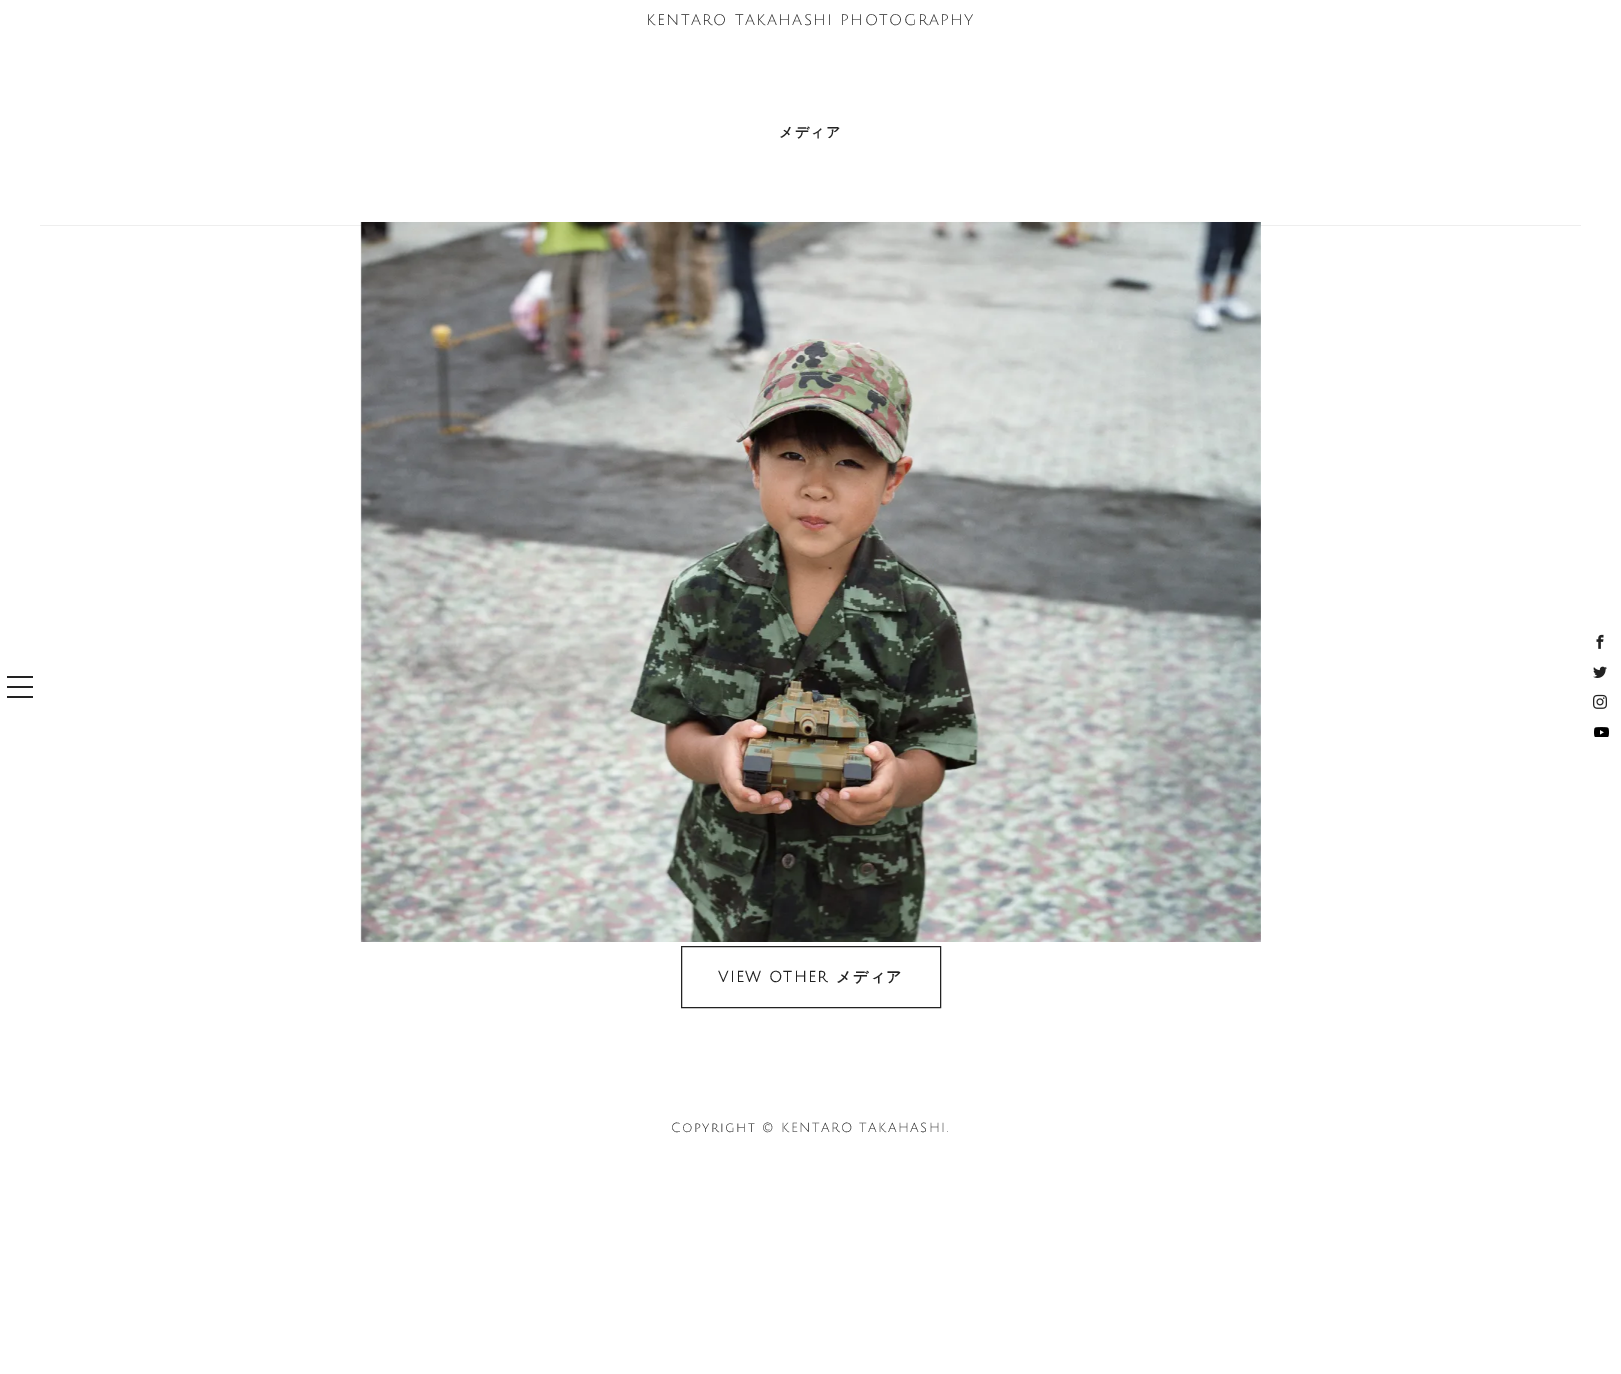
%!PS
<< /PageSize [1621 1374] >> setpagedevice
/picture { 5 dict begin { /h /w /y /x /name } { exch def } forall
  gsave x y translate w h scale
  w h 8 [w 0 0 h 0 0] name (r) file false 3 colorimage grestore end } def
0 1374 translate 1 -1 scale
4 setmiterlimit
1 setgray
0 0 1621 1374 rectfill
/JuliusSansOne-Regular [15 0 0 -15 0 0] selectfont
0.133 setgray
646 25 moveto 1.4 0 (KENTARO TAKAHASHI PHOTOGRAPHY) ashow
7 676 26 2 rectfill
7 686 26 2 rectfill
7 696 26 2 rectfill
(img1.rgb) 1596 634 8 15 picture
(img2.rgb) 1593 666 14 12 picture
(img3.rgb) 1593 694 14 15 picture
(img4.rgb) 1594 727 15 10 picture
0.933 setgray
40 225 1541 1 rectfill
/WenQuanYiZenHei-Bold [14 0 0 -14 0 0] selectfont
0.133 setgray
779 137 moveto 1.4 0 (メディア) ashow
(img5.rgb) 360 222 901 720 picture
681.5 946.5 259 61 rectstroke
/JuliusSansOne-Bold [15 0 0 -15 0 0] selectfont
718 982 moveto 1.4 0 (VIEW OTHER) ashow
/WenQuanYiZenHei-Bold [15 0 0 -15 0 0] selectfont
836 982 moveto 1.4 0 (メディア) ashow
/JuliusSansOne-Regular [13 0 0 -13 0 0] selectfont
671 1132 moveto 1.4 0 (Copyright © KENTARO TAKAHASHI.) ashow
showpage
